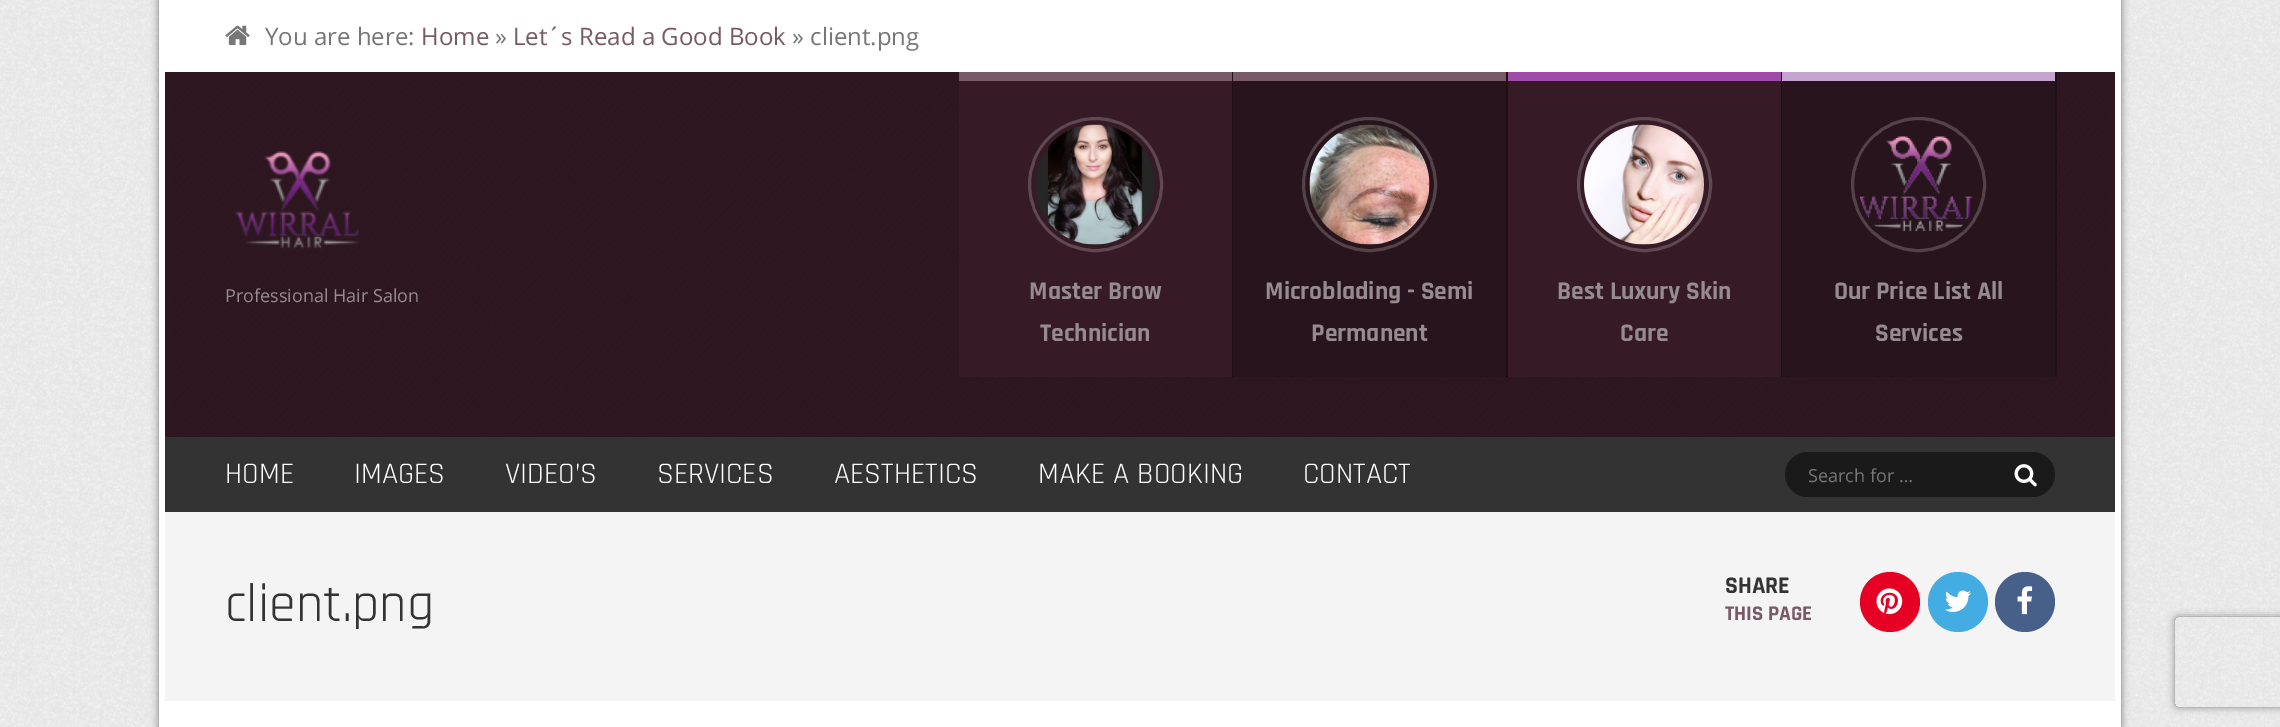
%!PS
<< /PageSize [2280 727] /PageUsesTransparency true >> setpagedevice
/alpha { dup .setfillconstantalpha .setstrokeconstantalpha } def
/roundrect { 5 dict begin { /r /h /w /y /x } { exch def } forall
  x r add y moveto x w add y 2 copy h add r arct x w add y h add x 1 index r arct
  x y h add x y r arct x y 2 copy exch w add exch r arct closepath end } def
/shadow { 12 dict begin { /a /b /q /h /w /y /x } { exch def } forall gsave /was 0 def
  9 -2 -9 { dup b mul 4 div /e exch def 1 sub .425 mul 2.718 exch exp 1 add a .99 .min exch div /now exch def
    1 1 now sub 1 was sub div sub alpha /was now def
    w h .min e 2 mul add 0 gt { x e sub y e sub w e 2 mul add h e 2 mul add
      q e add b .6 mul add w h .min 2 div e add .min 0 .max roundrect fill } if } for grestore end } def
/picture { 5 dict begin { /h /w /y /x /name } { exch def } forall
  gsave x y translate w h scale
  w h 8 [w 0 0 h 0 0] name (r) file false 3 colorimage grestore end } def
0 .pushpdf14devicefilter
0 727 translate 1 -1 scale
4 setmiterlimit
0.949 setgray
0 0 2280 727 rectfill
(img1.rgb) 0 0 2280 727 picture
0 setgray
159 0 1962 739 0 4 0.5 shadow
1 setgray
2115 0 6 727 rectfill
159 0 6 727 rectfill
165 0 1950 72 rectfill
(img2.rgb) 225 25 25 20 picture
/OpenSans-Regular [24 0 0 -24 0 0] selectfont
0.467 setgray
265 45 moveto (You are here:) show
0.471 0.353 0.4 setrgbcolor
421 45 moveto (Home) show
0.467 setgray
495 45 moveto (») show
0.471 0.353 0.4 setrgbcolor
513 45 moveto (Let´s Read a Good Book) show
0.467 setgray
792 45 moveto (» client.png) show
0.184 0.09 0.129 setrgbcolor
165 72 1950 365 rectfill
(img3.rgb) 170 80 1936 356 picture
(img4.rgb) 235 151 125 98 picture
/OpenSans-Regular [18 0 0 -18 0 0] selectfont
0.588 0.545 0.561 setrgbcolor
225 302 moveto (Professional Hair Salon) show
0.3 alpha
0 setgray
newpath 959 376 moveto 959 377 lineto 2057 377 lineto 2057 72 lineto 2055 72 lineto 2055 376 lineto closepath fill
newpath 960 376 moveto 960 377 lineto 1233 377 lineto 1233 72 lineto 1232 72 lineto 1232 376 lineto closepath fill
1 alpha
0.212 0.102 0.149 setrgbcolor
959 81 273 296 rectfill
0.471 0.353 0.4 setrgbcolor
959 72 273 9 rectfill
0.369 0.282 0.318 setrgbcolor
3 setlinewidth
newpath 1095.5 184.5 66 0 360 arc closepath stroke
(img5.rgb) 1035 124 120 121 picture
/Rajdhani-Bold [25.5 0 0 -25.5 0 0] selectfont
0.588 0.545 0.561 setrgbcolor
1029 299 moveto (Master Brow) show
1040 341 moveto (Technician) show
0.3 alpha
0 setgray
newpath 1235 376 moveto 1235 377 lineto 1508 377 lineto 1508 72 lineto 1506 72 lineto 1506 376 lineto closepath fill
1 alpha
0.157 0.078 0.11 setrgbcolor
1233 81 273 296 rectfill
0.471 0.353 0.4 setrgbcolor
1233 72 273 9 rectfill
0.325 0.263 0.286 setrgbcolor
newpath 1369.5 184.5 66 0 360 arc closepath stroke
(img6.rgb) 1309 124 121 121 picture
0.588 0.545 0.561 setrgbcolor
1265 299 moveto (Microblading - Semi) show
1311 341 moveto (Permanent) show
0.3 alpha
0 setgray
newpath 1509 376 moveto 1509 377 lineto 1782 377 lineto 1782 72 lineto 1780 72 lineto 1780 376 lineto closepath fill
1 alpha
0.212 0.102 0.149 setrgbcolor
1508 81 273 296 rectfill
0.624 0.298 0.659 setrgbcolor
1508 72 273 9 rectfill
0.369 0.282 0.318 setrgbcolor
newpath 1644.5 184.5 66 0 360 arc closepath stroke
(img7.rgb) 1584 124 120 121 picture
0.588 0.545 0.561 setrgbcolor
1557 299 moveto (Best Luxury Skin) show
1620 341 moveto (Care) show
0.157 0.078 0.11 setrgbcolor
1782 81 273 296 rectfill
0.78 0.643 0.812 setrgbcolor
1782 72 273 9 rectfill
0.325 0.263 0.286 setrgbcolor
newpath 1918.5 184.5 66 0 360 arc closepath stroke
(img8.rgb) 1859 136 114 96 picture
0.588 0.545 0.561 setrgbcolor
1834 299 moveto (Our Price List All) show
1875 341 moveto (Services) show
0.2 setgray
165 437 1950 75 rectfill
/Rajdhani-Regular [30 0 0 -30 0 0] selectfont
1 setgray
225 483 moveto (HOME) show
354 483 moveto (IMAGES) show
505 483 moveto (VIDEO’S) show
657 483 moveto (SERVICES) show
834 483 moveto (AESTHETICS) show
1038 483 moveto (MAKE A BOOKING) show
1303 483 moveto (CONTACT) show
0.102 setgray
1785 452 270 45 22.5 roundrect fill
/OpenSans-Regular [18 0 0 -18 0 0] selectfont
0.467 setgray
1808 482 moveto (Search for …) show
(img9.rgb) 2014 464 23 23 picture
1 setgray
165 701 1950 26 rectfill
0.957 setgray
165 512 1950 189 rectfill
/Rajdhani-Regular [54 0 0 -54 0 0] selectfont
0.2 setgray
225 621 moveto (client.png) show
/Rajdhani-Bold [24 0 0 -24 0 0] selectfont
1725 593 moveto (SHARE) show
/Rajdhani-Bold [21 0 0 -21 0 0] selectfont
0.471 0.353 0.4 setrgbcolor
1725 620 moveto (THIS PAGE) show
0.902 0 0.137 setrgbcolor
newpath 1890 602 30 0 360 arc closepath fill
(img10.rgb) 1876 588 27 27 picture
0.259 0.675 0.89 setrgbcolor
newpath 1958 602 30 0 360 arc closepath fill
(img11.rgb) 1945 590 26 22 picture
0.278 0.376 0.541 setrgbcolor
newpath 2025 602 30 0 360 arc closepath fill
(img12.rgb) 2017 586 16 29 picture
gsave
newpath 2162 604 moveto 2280 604 lineto 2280 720 lineto 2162 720 lineto closepath 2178 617 moveto 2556 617 lineto 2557.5 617 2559 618.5 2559 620 curveto 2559 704 lineto 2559 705.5 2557.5 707 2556 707 curveto 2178 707 lineto 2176.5 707 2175 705.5 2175 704 curveto 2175 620 lineto 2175 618.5 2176.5 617 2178 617 curveto closepath eoclip newpath
0.502 setgray
2175 617 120 90 3 4 1 shadow
grestore
.poppdf14devicefilter showpage
